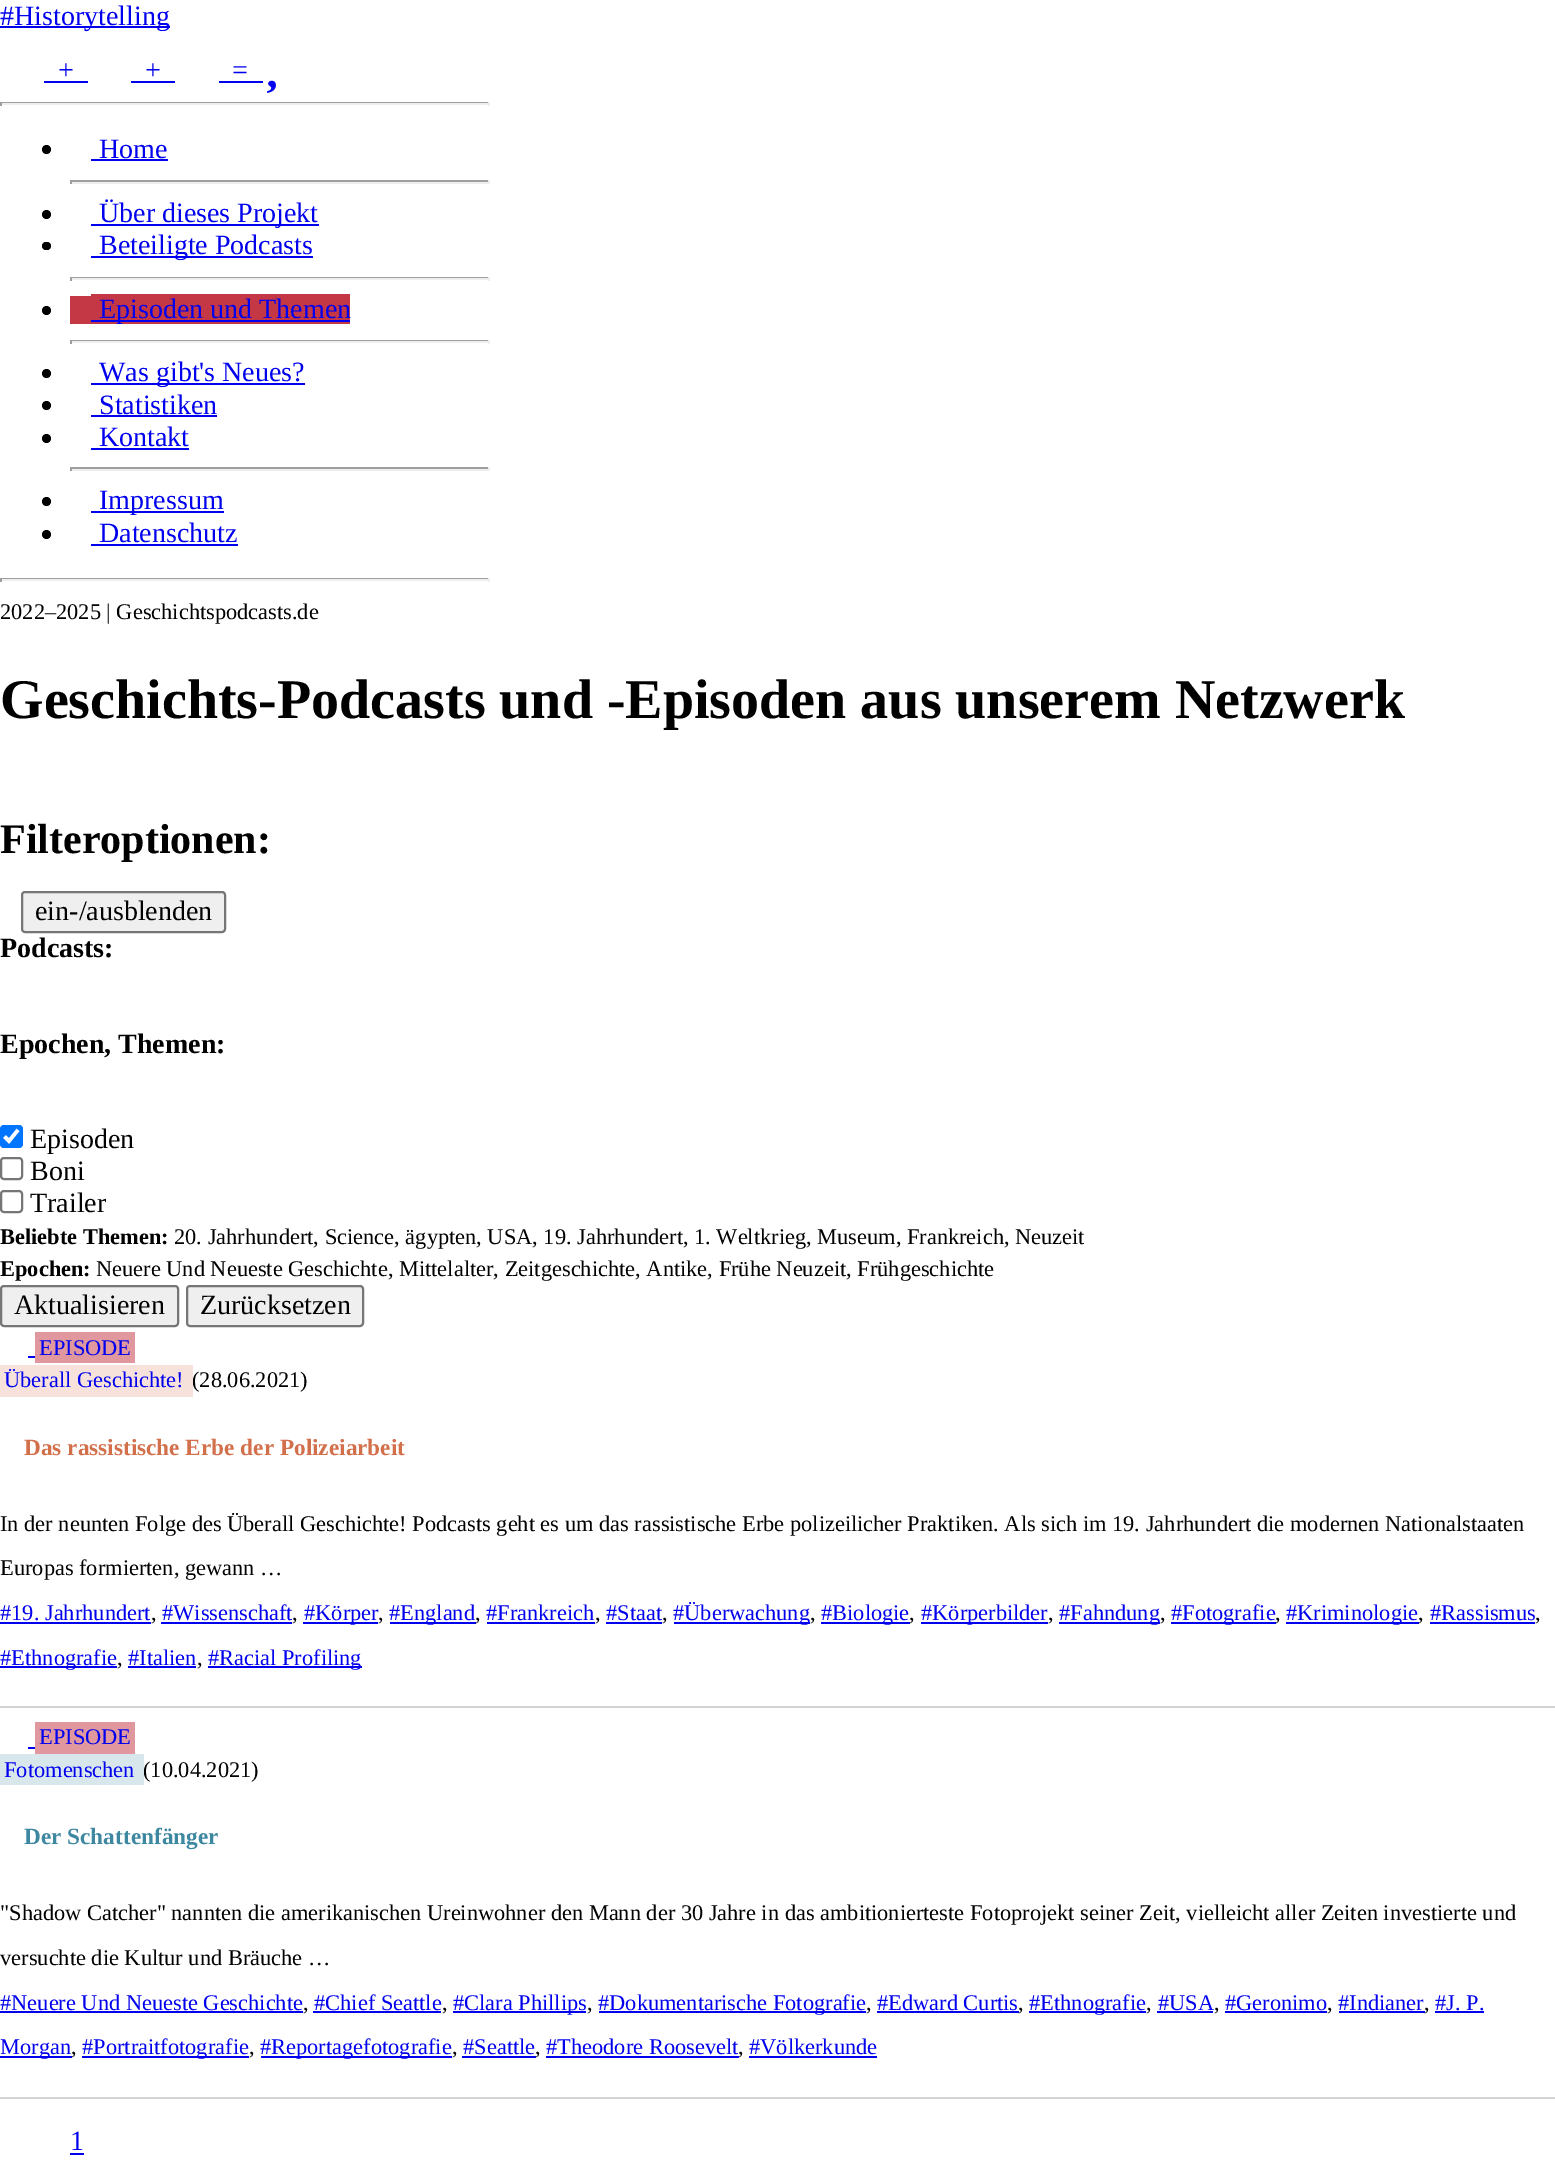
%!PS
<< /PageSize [1555 2160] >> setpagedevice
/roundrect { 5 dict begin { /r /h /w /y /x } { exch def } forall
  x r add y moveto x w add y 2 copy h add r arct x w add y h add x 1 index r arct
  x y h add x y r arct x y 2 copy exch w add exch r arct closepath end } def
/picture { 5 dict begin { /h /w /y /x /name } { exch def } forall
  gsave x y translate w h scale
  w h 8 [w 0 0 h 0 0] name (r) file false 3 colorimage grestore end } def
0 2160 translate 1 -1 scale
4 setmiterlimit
1 setgray
0 0 1555 2160 rectfill
0 0 0.933 setrgbcolor
0 26 170 2 rectfill
/LiberationSerif-Regular [28 0 0 -28 0 0] selectfont
0 25 moveto (#Historytelling) show
58 79 moveto (+) show
44 81 44 2 rectfill
145 79 moveto (+) show
131 81 44 2 rectfill
232 79 moveto (=) show
219 81 44 2 rectfill
(img1.rgb) 267 80 9 13 picture
0.624 setgray
0 102 490 1 rectfill
0.933 setgray
488 102 2 4 rectfill
0 103 490 2 rectfill
0.624 setgray
0 102 2 4 rectfill
0 setgray
newpath 46.5 149.5 4.5 0 360 arc closepath fill
0 0 0.933 setrgbcolor
99 158 moveto (Home) show
91 159 77 2 rectfill
0.624 setgray
70 180 420 2 rectfill
0.933 setgray
488 180 2 4 rectfill
70 182 420 2 rectfill
0.624 setgray
70 180 2 4 rectfill
0 setgray
newpath 46.5 214.5 4.5 0 360 arc closepath fill
0 0 0.933 setrgbcolor
91 224 228 2 rectfill
99 222 moveto (Über dieses Projekt) show
0 setgray
42 242 9 8 4 roundrect fill
0 0 0.933 setrgbcolor
91 256 222 2 rectfill
99 254 moveto (Beteiligte Podcasts) show
0.624 setgray
70 277 420 1 rectfill
0.933 setgray
488 277 2 4 rectfill
70 278 420 2 rectfill
0.624 setgray
70 277 2 4 rectfill
0 setgray
newpath 46.5 310.5 4.5 0 360 arc closepath fill
0.769 0.22 0.275 setrgbcolor
91 294 259 30 rectfill
0 0 0.933 setrgbcolor
91 320 259 2 rectfill
99 318 moveto (Episoden und Themen) show
0.769 0.22 0.275 setrgbcolor
70 296 21 28 rectfill
0.624 setgray
70 340 420 1 rectfill
0.933 setgray
488 340 2 4 rectfill
70 341 420 2 rectfill
0.624 setgray
70 340 2 4 rectfill
0 setgray
newpath 46.5 373.5 4.5 0 360 arc closepath fill
0 0 0.933 setrgbcolor
91 383 214 2 rectfill
99 381 moveto (Was gibt's Neues?) show
0 setgray
newpath 46.5 405.5 4.5 0 360 arc closepath fill
0 0 0.933 setrgbcolor
99 414 moveto (Statistiken) show
91 415 126 2 rectfill
0 setgray
newpath 46.5 438.5 4.5 0 360 arc closepath fill
0 0 0.933 setrgbcolor
99 446 moveto (Kontakt) show
91 448 98 2 rectfill
0.624 setgray
70 467 420 2 rectfill
0.933 setgray
488 467 2 4 rectfill
70 469 420 2 rectfill
0.624 setgray
70 467 2 4 rectfill
0 setgray
newpath 46.5 501.5 4.5 0 360 arc closepath fill
0 0 0.933 setrgbcolor
91 511 133 2 rectfill
99 509 moveto (Impressum) show
0 setgray
newpath 46.5 534.5 4.5 0 360 arc closepath fill
0 0 0.933 setrgbcolor
99 542 moveto (Datenschutz) show
91 544 147 2 rectfill
0.624 setgray
0 578 490 1 rectfill
0.933 setgray
488 578 2 4 rectfill
0 579 490 2 rectfill
0.624 setgray
0 578 2 4 rectfill
/LiberationSerif-Regular [22.4 0 0 -22.4 0 0] selectfont
0 setgray
0 619 moveto (2022–2025 | Geschichtspodcasts.de) show
/LiberationSerif-Bold [56 0 0 -56 0 0] selectfont
0 718 moveto (Geschichts-Podcasts und -Episoden aus unserem Netzwerk) show
/LiberationSerif-Bold [42 0 0 -42 0 0] selectfont
0 853 moveto (Filteroptionen:) show
0.937 setgray
22 892 203 40 3 roundrect gsave fill grestore
0.463 setgray
2 setlinewidth
stroke
/LiberationSerif-Regular [28 0 0 -28 0 0] selectfont
0 setgray
35 920 moveto (ein-/ausblenden) show
/LiberationSerif-Bold [28 0 0 -28 0 0] selectfont
0 957 moveto (Podcasts:) show
0 1053 moveto (Epochen, Themen:) show
0 0.459 1 setrgbcolor
0 1125 23 23 4 roundrect fill
1 setgray
3.6 setlinewidth
newpath 4.5 1136.5 moveto 9 1141 lineto 18 1130 lineto stroke
/LiberationSerif-Regular [28 0 0 -28 0 0] selectfont
0 setgray
30 1148 moveto (Episoden) show
0.463 setgray
2 setlinewidth
1 1158 21 21 3 roundrect stroke
0 setgray
30 1180 moveto (Boni) show
0.463 setgray
1 1191 21 21 3 roundrect stroke
0 setgray
30 1212 moveto (Trailer) show
/LiberationSerif-Bold [22.4 0 0 -22.4 0 0] selectfont
0 1244 moveto (Beliebte Themen:) show
/LiberationSerif-Regular [22.4 0 0 -22.4 0 0] selectfont
174 1244 moveto (20. Jahrhundert, Science, ägypten, USA, 19. Jahrhundert, 1. Weltkrieg, Museum, Frankreich, Neuzeit) show
/LiberationSerif-Bold [22.4 0 0 -22.4 0 0] selectfont
0 1276 moveto (Epochen:) show
/LiberationSerif-Regular [22.4 0 0 -22.4 0 0] selectfont
96 1276 moveto (Neuere Und Neueste Geschichte, Mittelalter, Zeitgeschichte, Antike, Frühe Neuzeit, Frühgeschichte) show
0.937 setgray
1 1286 177 40 3 roundrect gsave fill grestore
0.463 setgray
stroke
/LiberationSerif-Regular [28 0 0 -28 0 0] selectfont
0 setgray
14 1314 moveto (Aktualisieren) show
0.937 setgray
187 1286 176 40 3 roundrect gsave fill grestore
0.463 setgray
stroke
0 setgray
200 1314 moveto (Zurücksetzen) show
0.827 setgray
0 1706 1555 2 rectfill
0.878 0.592 0.62 setrgbcolor
35 1332 100 31 rectfill
/LiberationSerif-Regular [22.4 0 0 -22.4 0 0] selectfont
0 0 0.933 setrgbcolor
39 1355 moveto (EPISODE) show
28 1356 7 2 rectfill
0.965 0.886 0.859 setrgbcolor
0 1365 193 32 rectfill
0 0 0.933 setrgbcolor
4 1387 moveto (Überall Geschichte!) show
0 setgray
192 1387 moveto (\(28.06.2021\)) show
/LiberationSerif-Bold [23.25 0 0 -23.25 0 0] selectfont
0.827 0.439 0.298 setrgbcolor
24 1455 moveto (Das rassistische Erbe der Polizeiarbeit) show
/LiberationSerif-Regular [22.4 0 0 -22.4 0 0] selectfont
0 setgray
0 1531 moveto (In der neunten Folge des Überall Geschichte! Podcasts geht es um das rassistische Erbe polizeilicher Praktiken. Als sich im 19. Jahrhundert die modernen Nationalstaaten) show
0 1575 moveto (Europas formierten, gewann …) show
0 0 0.933 setrgbcolor
0 1620 moveto (#19. Jahrhundert) show
0 setgray
151 1620 moveto (,) show
0 0 0.933 setrgbcolor
0 1622 151 2 rectfill
162 1620 moveto (#Wissenschaft) show
0 setgray
292 1620 moveto (,) show
0 0 0.933 setrgbcolor
161 1622 131 2 rectfill
303 1622 75 2 rectfill
304 1620 moveto (#Körper) show
0 setgray
378 1620 moveto (,) show
0 0 0.933 setrgbcolor
390 1622 86 2 rectfill
389 1620 moveto (#England) show
0 setgray
475 1620 moveto (,) show
0 0 0.933 setrgbcolor
486 1620 moveto (#Frankreich) show
0 setgray
595 1620 moveto (,) show
0 0 0.933 setrgbcolor
487 1622 108 2 rectfill
606 1620 moveto (#Staat) show
0 setgray
662 1620 moveto (,) show
0 0 0.933 setrgbcolor
606 1622 56 2 rectfill
674 1622 136 2 rectfill
673 1620 moveto (#Überwachung) show
0 setgray
810 1620 moveto (,) show
0 0 0.933 setrgbcolor
821 1622 89 2 rectfill
821 1620 moveto (#Biologie) show
0 setgray
909 1620 moveto (,) show
0 0 0.933 setrgbcolor
921 1622 127 2 rectfill
921 1620 moveto (#Körperbilder) show
0 setgray
1048 1620 moveto (,) show
0 0 0.933 setrgbcolor
1059 1622 101 2 rectfill
1059 1620 moveto (#Fahndung) show
0 setgray
1160 1620 moveto (,) show
0 0 0.933 setrgbcolor
1171 1622 105 2 rectfill
1171 1620 moveto (#Fotografie) show
0 setgray
1275 1620 moveto (,) show
0 0 0.933 setrgbcolor
1286 1622 133 2 rectfill
1286 1620 moveto (#Kriminologie) show
0 setgray
1418 1620 moveto (,) show
0 0 0.933 setrgbcolor
1430 1620 moveto (#Rassismus) show
0 setgray
1535 1620 moveto (,) show
0 0 0.933 setrgbcolor
1430 1622 105 2 rectfill
0 1666 117 2 rectfill
0 1665 moveto (#Ethnografie) show
0 setgray
117 1665 moveto (,) show
0 0 0.933 setrgbcolor
128 1665 moveto (#Italien) show
0 setgray
197 1665 moveto (,) show
0 0 0.933 setrgbcolor
128 1666 68 2 rectfill
208 1666 154 2 rectfill
208 1665 moveto (#Racial Profiling) show
0.827 setgray
0 2097 1555 2 rectfill
0.878 0.592 0.62 setrgbcolor
35 1722 100 32 rectfill
0 0 0.933 setrgbcolor
39 1744 moveto (EPISODE) show
28 1747 7 2 rectfill
0.847 0.906 0.925 setrgbcolor
0 1754 144 31 rectfill
0 0 0.933 setrgbcolor
4 1777 moveto (Fotomenschen) show
0 setgray
143 1777 moveto (\(10.04.2021\)) show
/LiberationSerif-Bold [23.25 0 0 -23.25 0 0] selectfont
0.243 0.529 0.631 setrgbcolor
24 1844 moveto (Der Schattenfänger) show
/LiberationSerif-Regular [22.4 0 0 -22.4 0 0] selectfont
0 setgray
0 1920 moveto ("Shadow Catcher" nannten die amerikanischen Ureinwohner den Mann der 30 Jahre in das ambitionierteste Fotoprojekt seiner Zeit, vielleicht aller Zeiten investierte und) show
0 1965 moveto (versuchte die Kultur und Bräuche …) show
0 0 0.933 setrgbcolor
0 2010 moveto (#Neuere Und Neueste Geschichte) show
0 setgray
303 2010 moveto (,) show
0 0 0.933 setrgbcolor
0 2011 303 2 rectfill
314 2010 moveto (#Chief Seattle) show
0 setgray
442 2010 moveto (,) show
0 0 0.933 setrgbcolor
313 2011 128 2 rectfill
453 2011 133 2 rectfill
453 2010 moveto (#Clara Phillips) show
0 setgray
587 2010 moveto (,) show
0 0 0.933 setrgbcolor
599 2011 267 2 rectfill
598 2010 moveto (#Dokumentarische Fotografie) show
0 setgray
866 2010 moveto (,) show
0 0 0.933 setrgbcolor
877 2010 moveto (#Edward Curtis) show
0 setgray
1018 2010 moveto (,) show
0 0 0.933 setrgbcolor
877 2011 142 2 rectfill
1029 2011 117 2 rectfill
1029 2010 moveto (#Ethnografie) show
0 setgray
1146 2010 moveto (,) show
0 0 0.933 setrgbcolor
1158 2010 moveto (#USA) show
0 setgray
1214 2010 moveto (,) show
0 0 0.933 setrgbcolor
1157 2011 56 2 rectfill
1225 2010 moveto (#Geronimo) show
0 setgray
1327 2010 moveto (,) show
0 0 0.933 setrgbcolor
1225 2011 102 2 rectfill
1338 2010 moveto (#Indianer) show
1339 2011 86 2 rectfill
0 setgray
1424 2010 moveto (,) show
0 0 0.933 setrgbcolor
1435 2011 49 2 rectfill
1435 2010 moveto (#J. P.) show
0 2056 72 2 rectfill
0 2054 moveto (Morgan) show
0 setgray
71 2054 moveto (,) show
0 0 0.933 setrgbcolor
82 2056 167 2 rectfill
82 2054 moveto (#Portraitfotografie) show
0 setgray
249 2054 moveto (,) show
0 0 0.933 setrgbcolor
261 2056 191 2 rectfill
260 2054 moveto (#Reportagefotografie) show
0 setgray
452 2054 moveto (,) show
0 0 0.933 setrgbcolor
463 2054 moveto (#Seattle) show
462 2056 74 2 rectfill
0 setgray
535 2054 moveto (,) show
0 0 0.933 setrgbcolor
546 2054 moveto (#Theodore Roosevelt) show
0 setgray
738 2054 moveto (,) show
0 0 0.933 setrgbcolor
546 2056 193 2 rectfill
749 2056 128 2 rectfill
749 2054 moveto (#Völkerkunde) show
/LiberationSerif-Regular [28 0 0 -28 0 0] selectfont
70 2150 moveto (1) show
70 2153 14 2 rectfill
showpage
